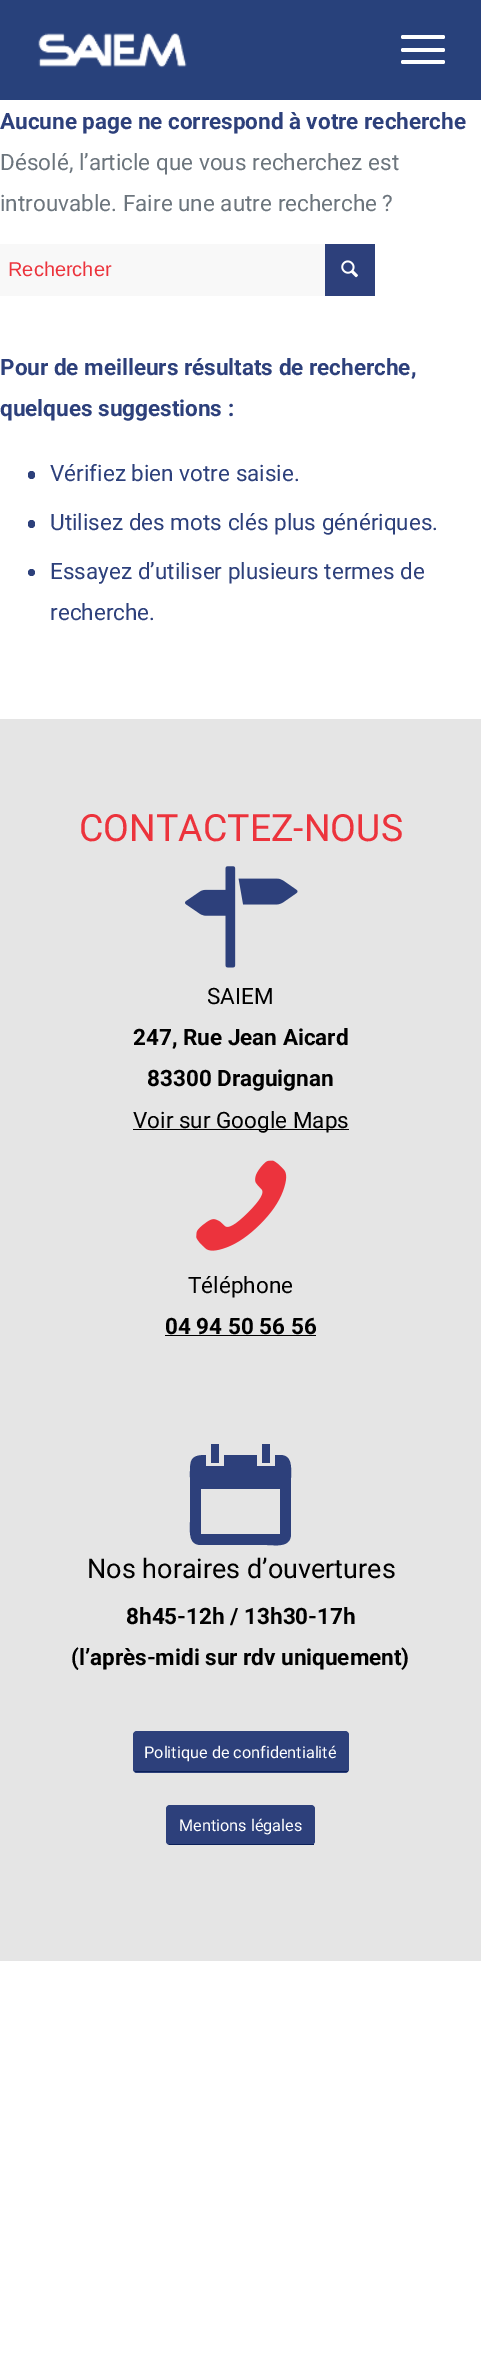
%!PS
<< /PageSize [481 2372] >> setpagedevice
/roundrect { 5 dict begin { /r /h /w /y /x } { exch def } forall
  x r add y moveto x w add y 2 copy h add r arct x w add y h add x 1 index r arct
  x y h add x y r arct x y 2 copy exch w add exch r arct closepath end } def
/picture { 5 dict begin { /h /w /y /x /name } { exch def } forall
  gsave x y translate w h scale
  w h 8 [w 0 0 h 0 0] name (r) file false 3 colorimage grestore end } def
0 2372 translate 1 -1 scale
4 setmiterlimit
1 setgray
0 0 481 2372 rectfill
0.157 0.255 0.482 setrgbcolor
0 0 481 100 rectfill
(img1.rgb) 38 33 149 35 picture
1 setgray
401 48 44 4 2 roundrect fill
401 35 44 4 2 roundrect fill
401 60 44 4 2 roundrect fill
/Roboto-Bold [22.5 0 0 -22.5 0 0] selectfont
0.176 0.251 0.482 setrgbcolor
0 129 moveto (Aucune page ne correspond à votre recherche) show
/Roboto-Regular [22.5 0 0 -22.5 0 0] selectfont
0.424 0.459 0.49 setrgbcolor
0 170 moveto (Désolé, l’article que vous recherchez est) show
0 211 moveto (introuvable. Faire une autre recherche ?) show
0.973 setgray
0 244 325 52 rectfill
/LiberationSans-Regular [20 0 0 -20 0 0] selectfont
0.925 0.2 0.235 setrgbcolor
8 276 moveto (Rechercher) show
0.176 0.251 0.482 setrgbcolor
325 244 50 52 rectfill
(img2.rgb) 341 260 17 18 picture
/Roboto-Bold [22.5 0 0 -22.5 0 0] selectfont
0 375 moveto (Pour de meilleurs résultats de recherche,) show
0 416 moveto (quelques suggestions :) show
28 471 7 8 3.5 roundrect fill
/Roboto-Regular [22.5 0 0 -22.5 0 0] selectfont
50 481 moveto (Vérifiez bien votre saisie.) show
28 520 7 8 3.5 roundrect fill
50 530 moveto (Utilisez des mots clés plus génériques.) show
newpath 31.5 572.5 3.5 0 360 arc closepath fill
50 579 moveto (Essayez d’utiliser plusieurs termes de) show
50 620 moveto (recherche.) show
0.898 setgray
0 719 481 1242 rectfill
/Roboto-Regular [37.5 0 0 -37.5 0 0] selectfont
0.925 0.2 0.235 setrgbcolor
79 841 moveto (CONTACTEZ-NOUS) show
(img3.rgb) 185 866 113 102 picture
/Roboto-Regular [22.5 0 0 -22.5 0 0] selectfont
0 setgray
207 1004 moveto (SAIEM) show
/Roboto-Bold [22.5 0 0 -22.5 0 0] selectfont
133 1045 moveto (247, Rue Jean Aicard) show
147 1086 moveto (83300 Draguignan) show
133 1129 216 1 rectfill
/Roboto-Regular [22.5 0 0 -22.5 0 0] selectfont
133 1128 moveto (Voir sur Google Maps) show
(img4.rgb) 196 1160 91 91 picture
188 1293 moveto (Téléphone) show
/Roboto-Bold [22.5 0 0 -22.5 0 0] selectfont
165 1334 moveto (04 94 50 56 56) show
165 1335 151 1 rectfill
0.176 0.251 0.482 setrgbcolor
newpath 280 1455 moveto 293 1455 291 1469 291 1478 curveto 291 1535 lineto 290 1548 275 1545 267 1545 curveto 201 1545 lineto 188 1545 190 1531 190 1522 curveto 190 1478 lineto 190 1461 189 1455 206 1455 curveto 206 1466 lineto 224 1466 lineto 224 1455 lineto 257 1455 lineto 257 1466 lineto 275 1466 lineto 275 1455 lineto closepath 280 1534 moveto 280 1489 lineto 201 1489 lineto 201 1534 lineto closepath 219 1444 moveto 219 1463 lineto 211 1463 lineto 211 1444 lineto closepath 270 1444 moveto 270 1463 lineto 262 1463 lineto 262 1444 lineto closepath fill
/Roboto-Regular [27 0 0 -27 0 0] selectfont
0 setgray
87 1578 moveto (Nos horaires d’ouvertures) show
/Roboto-Bold [22.5 0 0 -22.5 0 0] selectfont
126 1624 moveto (8h45-12h / 13h30-17h) show
71 1665 moveto (\(l’après-midi sur rdv uniquement\)) show
0.176 0.251 0.482 setrgbcolor
133 1731 216 42 4 roundrect fill
0.043 0.125 0.349 setrgbcolor
135 1771 213 1 rectfill
/Roboto-Regular [16.25 0 0 -16.25 0 0] selectfont
1 setgray
144 1758 moveto (Politique de confidentialité) show
0.176 0.251 0.482 setrgbcolor
166 1805 149 40 4 roundrect fill
0.043 0.125 0.349 setrgbcolor
169 1844 145 1 rectfill
1 setgray
179 1831 moveto (Mentions légales) show
showpage
